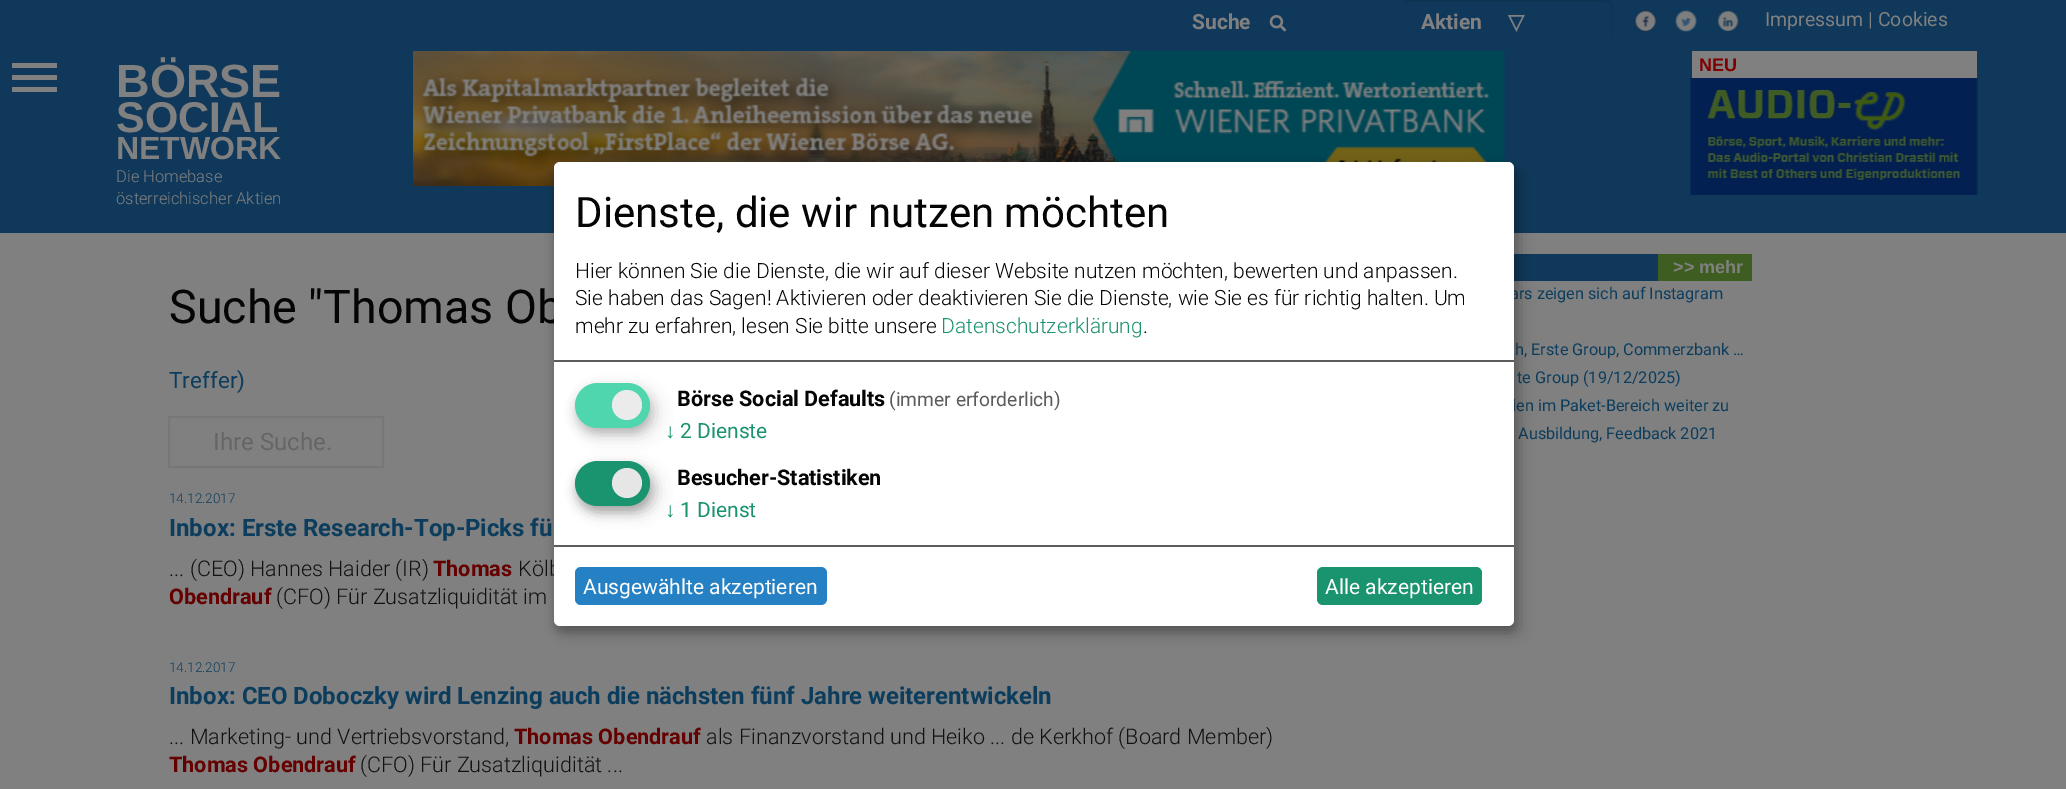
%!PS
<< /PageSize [2066 789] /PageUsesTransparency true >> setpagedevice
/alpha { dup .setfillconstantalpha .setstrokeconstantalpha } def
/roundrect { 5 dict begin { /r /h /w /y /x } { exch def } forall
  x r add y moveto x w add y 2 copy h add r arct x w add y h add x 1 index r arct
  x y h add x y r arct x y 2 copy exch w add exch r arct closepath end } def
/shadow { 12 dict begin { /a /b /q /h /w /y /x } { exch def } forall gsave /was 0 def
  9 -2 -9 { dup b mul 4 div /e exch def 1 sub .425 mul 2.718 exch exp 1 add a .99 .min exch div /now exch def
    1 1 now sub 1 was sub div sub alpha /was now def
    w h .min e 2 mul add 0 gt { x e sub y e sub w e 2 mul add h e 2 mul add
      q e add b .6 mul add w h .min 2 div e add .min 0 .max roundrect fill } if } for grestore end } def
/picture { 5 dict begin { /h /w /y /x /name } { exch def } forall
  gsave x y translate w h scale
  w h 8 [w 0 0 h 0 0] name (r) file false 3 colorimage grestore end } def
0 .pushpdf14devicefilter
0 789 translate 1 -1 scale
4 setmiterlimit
0.502 setgray
0 0 2066 789 rectfill
0.059 0.22 0.357 setrgbcolor
0 0 2066 233 rectfill
/Roboto-Bold [21 0 0 -21 0 0] selectfont
0.502 setgray
1192 29 moveto (Suche) show
(img1.rgb) 1269 15 18 17 picture
0.055 0.204 0.329 setrgbcolor
newpath 1408 2 moveto 1606 2 lineto 1614 2 1612 13 1612 18 curveto 1612 40 lineto 1613 39 1613 37 1613 36 curveto 1613 6 lineto 1613 3 1610 0 1607 0 curveto 1409 0 lineto 1406 0 1404 2 1403 4 curveto 1404 3 1406 2 1408 2 curveto closepath fill
0.502 setgray
1421 29 moveto (Aktien) show
/DejaVuSans-Bold [21 0 0 -21 0 0] selectfont
1508 29 moveto (▽) show
(img2.rgb) 1634 10 23 22 picture
(img3.rgb) 1675 10 22 22 picture
(img4.rgb) 1717 10 22 22 picture
/Roboto-Regular [19.5 0 0 -19.5 0 0] selectfont
1765 26 moveto (Impressum | Cookies) show
12 87 45 5 rectfill
12 75 45 5 rectfill
12 63 45 5 rectfill
/Arimo-Bold [46.5 0 0 -46.5 0 0] selectfont
116 97 moveto (BÖRSE) show
/Arimo-Bold [43 0 0 -43 0 0] selectfont
116 132 moveto (SOCIAL) show
/Arimo-Bold [32 0 0 -32 0 0] selectfont
116 159 moveto (NETWORK) show
/Roboto-Light [16.5 0 0 -16.5 0 0] selectfont
116 182 moveto (Die Homebase) show
116 204 moveto (österreichischer Aktien) show
(img5.rgb) 413 51 1092 135 picture
1692 51 285 27 rectfill
/Arimo-Bold [18 0 0 -18 0 0] selectfont
0.502 0 0 setrgbcolor
1699 71 moveto (NEU) show
(img6.rgb) 1690 78 288 117 picture
/Roboto-Regular [46.5 0 0 -46.5 0 0] selectfont
0.02 setgray
169 323 moveto (Suche "Thomas Ob) show
/Roboto-Regular [22.5 0 0 -22.5 0 0] selectfont
0.047 0.239 0.365 setrgbcolor
169 388 moveto (Treffer\)) show
0.467 setgray
2 setlinewidth
169 417 214 50 rectstroke
/Roboto-Regular [24 0 0 -24 0 0] selectfont
0.396 setgray
213 450 moveto (Ihre Suche.) show
/Roboto-Light [13.5 0 0 -13.5 0 0] selectfont
0.047 0.239 0.365 setrgbcolor
169 503 moveto (14.12.2017) show
/Roboto-Bold [24 0 0 -24 0 0] selectfont
169 536 moveto (Inbox: Erste Research-Top-Picks fü) show
/Roboto-Light [21.6 0 0 -21.6 0 0] selectfont
0.067 setgray
169 576 moveto (... \(CEO\) Hannes Haider \(IR\)) show
/Roboto-Bold [21.6 0 0 -21.6 0 0] selectfont
0.396 0 0 setrgbcolor
433 576 moveto (Thomas) show
/Roboto-Light [21.6 0 0 -21.6 0 0] selectfont
0.067 setgray
518 576 moveto (Kölb) show
/Roboto-Bold [21.6 0 0 -21.6 0 0] selectfont
0.396 0 0 setrgbcolor
169 604 moveto (Obendrauf) show
/Roboto-Light [21.6 0 0 -21.6 0 0] selectfont
0.067 setgray
276 604 moveto (\(CFO\) Für Zusatzliquidität im) show
/Roboto-Light [13.5 0 0 -13.5 0 0] selectfont
0.047 0.239 0.365 setrgbcolor
169 672 moveto (14.12.2017) show
/Roboto-Bold [24 0 0 -24 0 0] selectfont
169 704 moveto (Inbox: CEO Doboczky wird Lenzing auch die nächsten fünf Jahre weiterentwickeln) show
/Roboto-Light [21.6 0 0 -21.6 0 0] selectfont
0.067 setgray
169 744 moveto (... Marketing- und Vertriebsvorstand,) show
/Roboto-Bold [21.6 0 0 -21.6 0 0] selectfont
0.396 0 0 setrgbcolor
514 744 moveto (Thomas Obendrauf) show
/Roboto-Light [21.6 0 0 -21.6 0 0] selectfont
0.067 setgray
706 744 moveto (als Finanzvorstand und Heiko ... de Kerkhof \(Board Member\)) show
/Roboto-Bold [21.6 0 0 -21.6 0 0] selectfont
0.396 0 0 setrgbcolor
169 772 moveto (Thomas Obendrauf) show
/Roboto-Light [21.6 0 0 -21.6 0 0] selectfont
0.067 setgray
360 772 moveto (\(CFO\) Für Zusatzliquidität ...) show
0.059 0.22 0.357 setrgbcolor
1514 254 144 27 rectfill
0.243 0.365 0.129 setrgbcolor
1658 254 94 27 rectfill
/Arimo-Bold [18 0 0 -18 0 0] selectfont
0.502 setgray
1673 273 moveto (>> mehr) show
/Roboto-Regular [16.25 0 0 -16.25 0 0] selectfont
0.047 0.239 0.365 setrgbcolor
1510 299 moveto (ars zeigen sich auf Instagram) show
1515 355 moveto (h, Erste Group, Commerzbank …) show
1517 383 moveto (te Group \(19/12/2025\)) show
1512 411 moveto (len im Paket-Bereich weiter zu) show
1518 439 moveto (Ausbildung, Feedback 2021) show
0 setgray
561 170 960 463 6 7.5 0.19 shadow
554 168 960 464 6 4.5 0.2 shadow
1 setgray
554 162 960 464 6 roundrect fill
0.361 setgray
554 360 960 2 rectfill
/Roboto-Regular [42 0 0 -42 0 0] selectfont
0.02 setgray
575 227 moveto (Dienste, die wir nutzen möchten) show
/Roboto-Light [21 0 0 -21 0 0] selectfont
575 278 moveto (Hier können Sie die Dienste, die wir auf dieser Website nutzen möchten, bewerten und anpassen.) show
575 305 moveto (Sie haben das Sagen! Aktivieren oder deaktivieren Sie die Dienste, wie Sie es für richtig halten. Um) show
575 333 moveto (mehr zu erfahren, lesen Sie bitte unsere) show
0.102 0.576 0.435 setrgbcolor
941 333 moveto (Datenschutzerklärung) show
0.02 setgray
1143 333 moveto (.) show
0.2 setgray
582 390 75 45 22.5 7.5 0.19 shadow
575 389 75 45 22.5 4.5 0.2 shadow
0.314 0.839 0.682 setrgbcolor
575 383 75 45 22.5 roundrect fill
0.922 setgray
newpath 627 405 15 0 360 arc closepath fill
/Roboto-Bold [21.6 0 0 -21.6 0 0] selectfont
0.02 setgray
677 406 moveto (Börse Social Defaults) show
/Roboto-Regular [19.25 0 0 -19.25 0 0] selectfont
0.361 setgray
889 406 moveto (\(immer erforderlich\)) show
/LiberationSans-Regular [21 0 0 -21 0 0] selectfont
0.102 0.576 0.435 setrgbcolor
665 438 moveto (↓) show
/Roboto-Regular [21 0 0 -21 0 0] selectfont
680 438 moveto (2 Dienste) show
0 setgray
582 468 75 45 22.5 7.5 0.19 shadow
575 467 75 45 22.5 4.5 0.2 shadow
0.102 0.576 0.435 setrgbcolor
575 461 75 45 22.5 roundrect fill
0.902 setgray
newpath 627 483 15 0 360 arc closepath fill
/Roboto-Bold [21.6 0 0 -21.6 0 0] selectfont
0.02 setgray
677 485 moveto (Besucher-Statistiken) show
/LiberationSans-Regular [21 0 0 -21 0 0] selectfont
0.102 0.576 0.435 setrgbcolor
665 517 moveto (↓) show
/Roboto-Regular [21 0 0 -21 0 0] selectfont
680 517 moveto (1 Dienst) show
0.361 setgray
554 545 960 2 rectfill
0.145 0.506 0.769 setrgbcolor
575 567 252 38 6 roundrect fill
1 setgray
583 594 moveto (Ausgewählte akzeptieren) show
0.102 0.576 0.435 setrgbcolor
1317 567 165 38 6 roundrect fill
1 setgray
1325 594 moveto (Alle akzeptieren) show
.poppdf14devicefilter showpage
